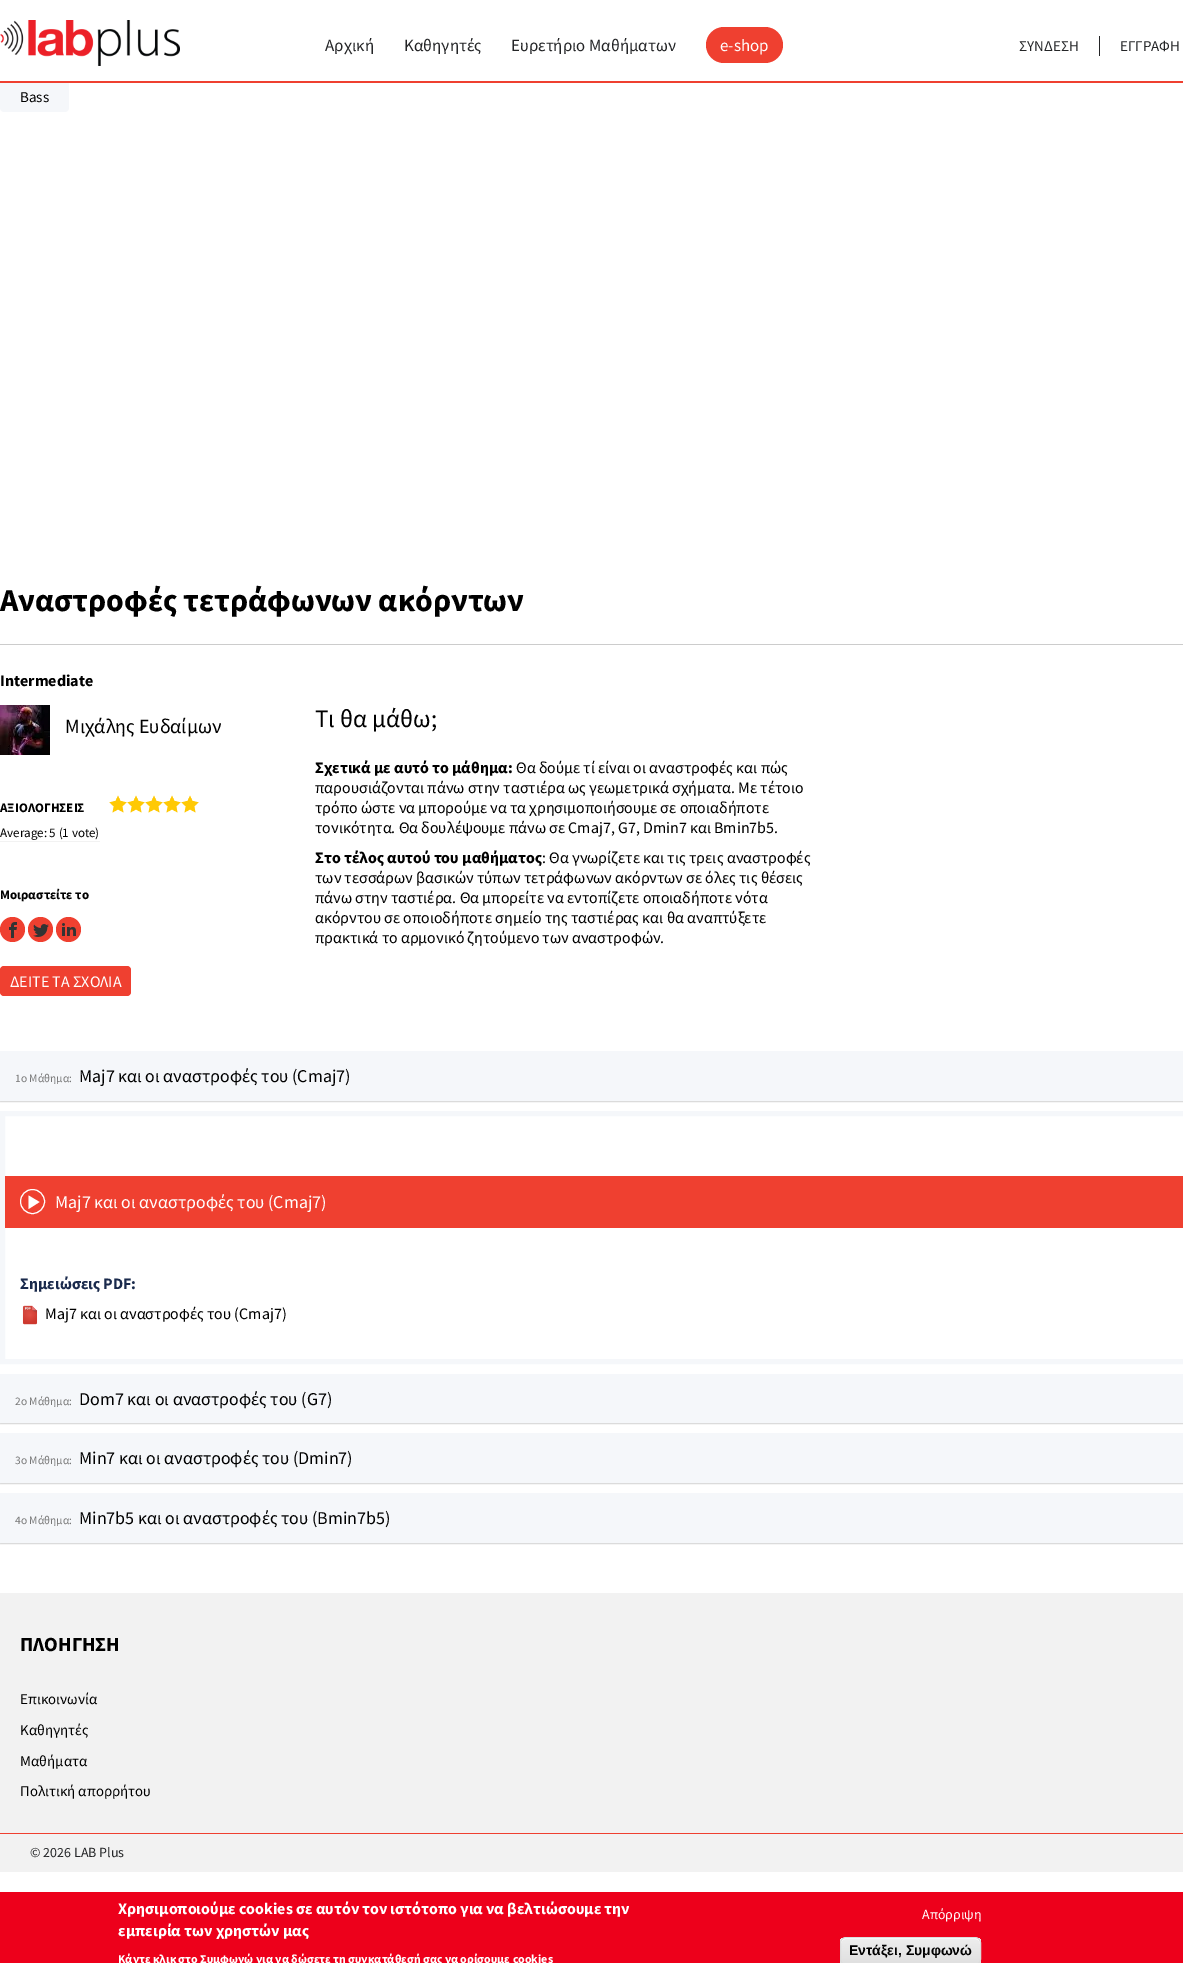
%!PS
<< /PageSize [1183 1963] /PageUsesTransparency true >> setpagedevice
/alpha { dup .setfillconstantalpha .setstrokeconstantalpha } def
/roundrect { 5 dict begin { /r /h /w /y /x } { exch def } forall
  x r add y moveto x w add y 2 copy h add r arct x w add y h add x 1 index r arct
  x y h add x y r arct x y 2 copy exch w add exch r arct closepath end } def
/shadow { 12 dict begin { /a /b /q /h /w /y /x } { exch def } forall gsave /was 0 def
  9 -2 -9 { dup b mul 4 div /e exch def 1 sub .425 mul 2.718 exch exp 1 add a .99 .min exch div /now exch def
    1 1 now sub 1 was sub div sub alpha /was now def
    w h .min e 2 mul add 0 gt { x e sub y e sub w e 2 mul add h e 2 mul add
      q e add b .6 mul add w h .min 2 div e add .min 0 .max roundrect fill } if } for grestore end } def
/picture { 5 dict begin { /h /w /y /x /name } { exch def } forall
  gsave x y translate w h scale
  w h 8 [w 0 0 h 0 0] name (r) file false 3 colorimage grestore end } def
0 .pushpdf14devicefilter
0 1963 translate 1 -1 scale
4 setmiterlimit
1 setgray
0 0 1183 1963 rectfill
0.937 0.251 0.188 setrgbcolor
0 81 1183 2 rectfill
(img1.rgb) 0 20 180 46 picture
/SourceSansPro-Regular [17 0 0 -17 0 0] selectfont
0.141 0.145 0.153 setrgbcolor
325 51 moveto (Αρχική) show
404 51 moveto (Καθηγητές) show
511 51 moveto (Ευρετήριο Μαθήματων) show
0.937 0.251 0.188 setrgbcolor
706 27 77 36 18 roundrect fill
1 setgray
720 51 moveto (e-shop) show
0.141 0.145 0.153 setrgbcolor
1099 36 1 20 rectfill
/SourceSansPro-Regular [15 0 0 -15 0 0] selectfont
1019 51 moveto (ΣΥΝΔΕΣΗ) show
1120 51 moveto (ΕΓΓΡΑΦΗ) show
0.961 0.969 0.98 setrgbcolor
newpath 0 83 moveto 69 83 lineto 69 108 lineto 69 110 67 112 65 112 curveto 4 112 lineto 2 112 0 110 0 108 curveto closepath fill
0 setgray
20 102 moveto (Bass) show
0.8 setgray
0 644 1183 1 rectfill
/SourceSansPro-Bold [32 0 0 -32 0 0] selectfont
0 setgray
0 611 moveto (Αναστροφές τετράφωνων ακόρντων) show
/SourceSansPro-Bold [16 0 0 -16 0 0] selectfont
0 686 moveto (Intermediate) show
(img2.rgb) 0 705 50 50 picture
/SourceSansPro-Regular [20 0 0 -20 0 0] selectfont
65 733 moveto (Μιχάλης Ευδαίμων) show
/SourceSansPro-Bold [13 0 0 -13 0 0] selectfont
0 812 moveto (ΑΞΙΟΛΟΓΗΣΕΙΣ) show
(img3.rgb) 109 795 18 18 picture
(img3.rgb) 127 795 18 18 picture
(img3.rgb) 145 795 18 18 picture
(img3.rgb) 163 795 18 18 picture
(img3.rgb) 181 795 18 18 picture
0.949 setgray
0 841 100 1 rectfill
/SourceSansPro-Regular [13 0 0 -13 0 0] selectfont
0 setgray
0 837 moveto (Average: 5 \(1 vote\)) show
/SourceSansPro-Bold [13 0 0 -13 0 0] selectfont
0 899 moveto (Μοιραστείτε το) show
0.937 0.251 0.188 setrgbcolor
newpath 12.5 929.5 12.5 0 360 arc closepath fill
(img4.rgb) 9 922 8 16 picture
newpath 40.5 929.5 12.5 0 360 arc closepath fill
(img5.rgb) 33 924 16 13 picture
newpath 68.5 929.5 12.5 0 360 arc closepath fill
(img6.rgb) 62 923 14 13 picture
0 966 131 30 4 roundrect fill
/SourceSansPro-Regular [16 0 0 -16 0 0] selectfont
1 setgray
10 987 moveto (ΔΕΙΤΕ ΤΑ ΣΧΟΛΙΑ) show
/SourceSansPro-Regular [25 0 0 -25 0 0] selectfont
0 setgray
315 727 moveto (Τι θα μάθω;) show
/SourceSansPro-Bold [16 0 0 -16 0 0] selectfont
315 773 moveto (Σχετικά με αυτό το μάθημα:) show
/SourceSansPro-Regular [16 0 0 -16 0 0] selectfont
516 773 moveto (Θα δούμε τί είναι οι αναστροφές και πώς) show
315 793 moveto (παρουσιάζονται πάνω στην ταστιέρα ως γεωμετρικά σχήματα. Με τέτοιο) show
315 813 moveto (τρόπο ώστε να μπορούμε να τα χρησιμοποιήσουμε σε οποιαδήποτε) show
315 833 moveto (τονικότητα. Θα δουλέψουμε πάνω σε Cmaj7, G7, Dmin7 και Bmin7b5.) show
/SourceSansPro-Bold [16 0 0 -16 0 0] selectfont
315 863 moveto (Στο τέλος αυτού του μαθήματος) show
/SourceSansPro-Regular [16 0 0 -16 0 0] selectfont
542 863 moveto (: Θα γνωρίζετε και τις τρεις αναστροφές) show
315 883 moveto (των τεσσάρων βασικών τύπων τετράφωνων ακόρντων σε όλες τις θέσεις) show
315 903 moveto (πάνω στην ταστιέρα. Θα μπορείτε να εντοπίζετε οποιαδήποτε νότα) show
315 923 moveto (ακόρντου σε οποιοδήποτε σημείο της ταστιέρας και θα αναπτύξετε) show
315 943 moveto (πρακτικά το αρμονικό ζητούμενο των αναστροφών.) show
0 1052 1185 50 0 0.5 0.16 shadow
0.961 0.969 0.98 setrgbcolor
0 1051 1183 50 rectfill
/SourceSansPro-Regular [11.5 0 0 -11.5 0 0] selectfont
0.467 setgray
15 1082 moveto (1o Μάθημα:) show
/SourceSansPro-Regular [18 0 0 -18 0 0] selectfont
0 setgray
79 1082 moveto (Maj7 και οι αναστροφές του \(Cmaj7\)) show
0.961 0.969 0.98 setrgbcolor
5 setlinewidth
2.5 1113.5 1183 248 rectstroke
0.937 0.251 0.188 setrgbcolor
5 1176 1178 52 rectfill
1 setgray
1 setlinewidth
newpath 32.5 1201.5 12 0 360 arc closepath stroke
newpath 28.5 1195.5 moveto 39.5 1202 lineto 28.5 1209 lineto closepath fill
55 1208 moveto (Maj7 και οι αναστροφές του \(Cmaj7\)) show
/SourceSansPro-Bold [16 0 0 -16 0 0] selectfont
0.102 0.165 0.298 setrgbcolor
20 1289 moveto (Σημειώσεις PDF:) show
(img7.rgb) 22 1305 16 20 picture
/SourceSansPro-Regular [16 0 0 -16 0 0] selectfont
0 setgray
45 1319 moveto (Maj7 και οι αναστροφές του \(Cmaj7\)) show
0 1375 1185 49 0 0.5 0.16 shadow
0.961 0.969 0.98 setrgbcolor
0 1374 1183 49 rectfill
/SourceSansPro-Regular [11.5 0 0 -11.5 0 0] selectfont
0.467 setgray
15 1405 moveto (2o Μάθημα:) show
/SourceSansPro-Regular [18 0 0 -18 0 0] selectfont
0 setgray
79 1405 moveto (Dom7 και οι αναστροφές του \(G7\)) show
0 1434 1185 50 0 0.5 0.16 shadow
0.961 0.969 0.98 setrgbcolor
0 1433 1183 50 rectfill
/SourceSansPro-Regular [11.5 0 0 -11.5 0 0] selectfont
0.467 setgray
15 1464 moveto (3o Μάθημα:) show
/SourceSansPro-Regular [18 0 0 -18 0 0] selectfont
0 setgray
79 1464 moveto (Μin7 και οι αναστροφές του \(Dmin7\)) show
0 1494 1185 50 0 0.5 0.16 shadow
0.961 0.969 0.98 setrgbcolor
0 1493 1183 50 rectfill
/SourceSansPro-Regular [11.5 0 0 -11.5 0 0] selectfont
0.467 setgray
15 1524 moveto (4o Μάθημα:) show
/SourceSansPro-Regular [18 0 0 -18 0 0] selectfont
0 setgray
79 1524 moveto (Μin7b5 και οι αναστροφές του \(Bmin7b5\)) show
0.949 setgray
0 1593 1183 279 rectfill
/SourceSansPro-Bold [20 0 0 -20 0 0] selectfont
0 setgray
20 1651 moveto (ΠΛΟΗΓΗΣΗ) show
/SourceSansPro-Regular [15 0 0 -15 0 0] selectfont
20 1704 moveto (Επικοινωνία) show
20 1735 moveto (Καθηγητές) show
20 1766 moveto (Μαθήματα) show
20 1796 moveto (Πολιτική απορρήτου) show
0.937 0.251 0.188 setrgbcolor
0 1833 1183 1 rectfill
/SourceSansPro-Regular [14 0 0 -14 0 0] selectfont
0.141 0.145 0.153 setrgbcolor
30 1857 moveto (© 2026 LAB Plus) show
0.929 0 0.106 setrgbcolor
0 1892 1183 71 rectfill
/SourceSansPro-Bold [16 0 0 -16 0 0] selectfont
1 setgray
118 1914 moveto (Χρησιμοποιούμε cookies σε αυτόν τον ιστότοπο για να βελτιώσουμε την) show
118 1936 moveto (εμπειρία των χρηστών μας) show
/SourceSansPro-Bold [12 0 0 -12 0 0] selectfont
118 1963 moveto (Κάντε κλικ στο Συμφωνώ για να δώσετε τη συγκατάθεσή σας να ορίσουμε cookies) show
/SourceSansPro-Regular [14 0 0 -14 0 0] selectfont
922 1919 moveto (Απόρριψη) show
gsave
840 1937 141 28 6 roundrect clip newpath
gsave newpath 840 1938 moveto 981 1938 lineto 981 1963 lineto 840 1963 lineto closepath clip newpath
<< /ShadingType 2 /ColorSpace /DeviceRGB /Coords [911 1938 911 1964] /Extend [true true] /Function << /FunctionType 3 /Domain [0 1] /Functions [<< /FunctionType 2 /Domain [0 1] /C0 [0.929 0.929 0.929] /C1 [0.929 0.929 0.929] /N 1 >> << /FunctionType 2 /Domain [0 1] /C0 [0.929 0.929 0.929] /C1 [0.875 0.875 0.875] /N 1 >>] /Bounds [0.05] /Encode [0 1 0 1] >> >> shfill grestore
grestore
newpath 846 1939 moveto 975 1939 lineto 978 1939 980 1941 980 1944 curveto 980 1943 lineto 980 1940 978 1938 975 1938 curveto 846 1938 lineto 843 1938 841 1940 841 1943 curveto 841 1944 lineto 841 1941 843 1939 846 1939 curveto closepath fill
0.863 setgray
840.5 1937.5 140 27 5.5 roundrect stroke
/LiberationSans-Bold [14 0 0 -14 0 0] selectfont
0 setgray
849 1955 moveto (Εντάξει, Συμφωνώ) show
.poppdf14devicefilter showpage
